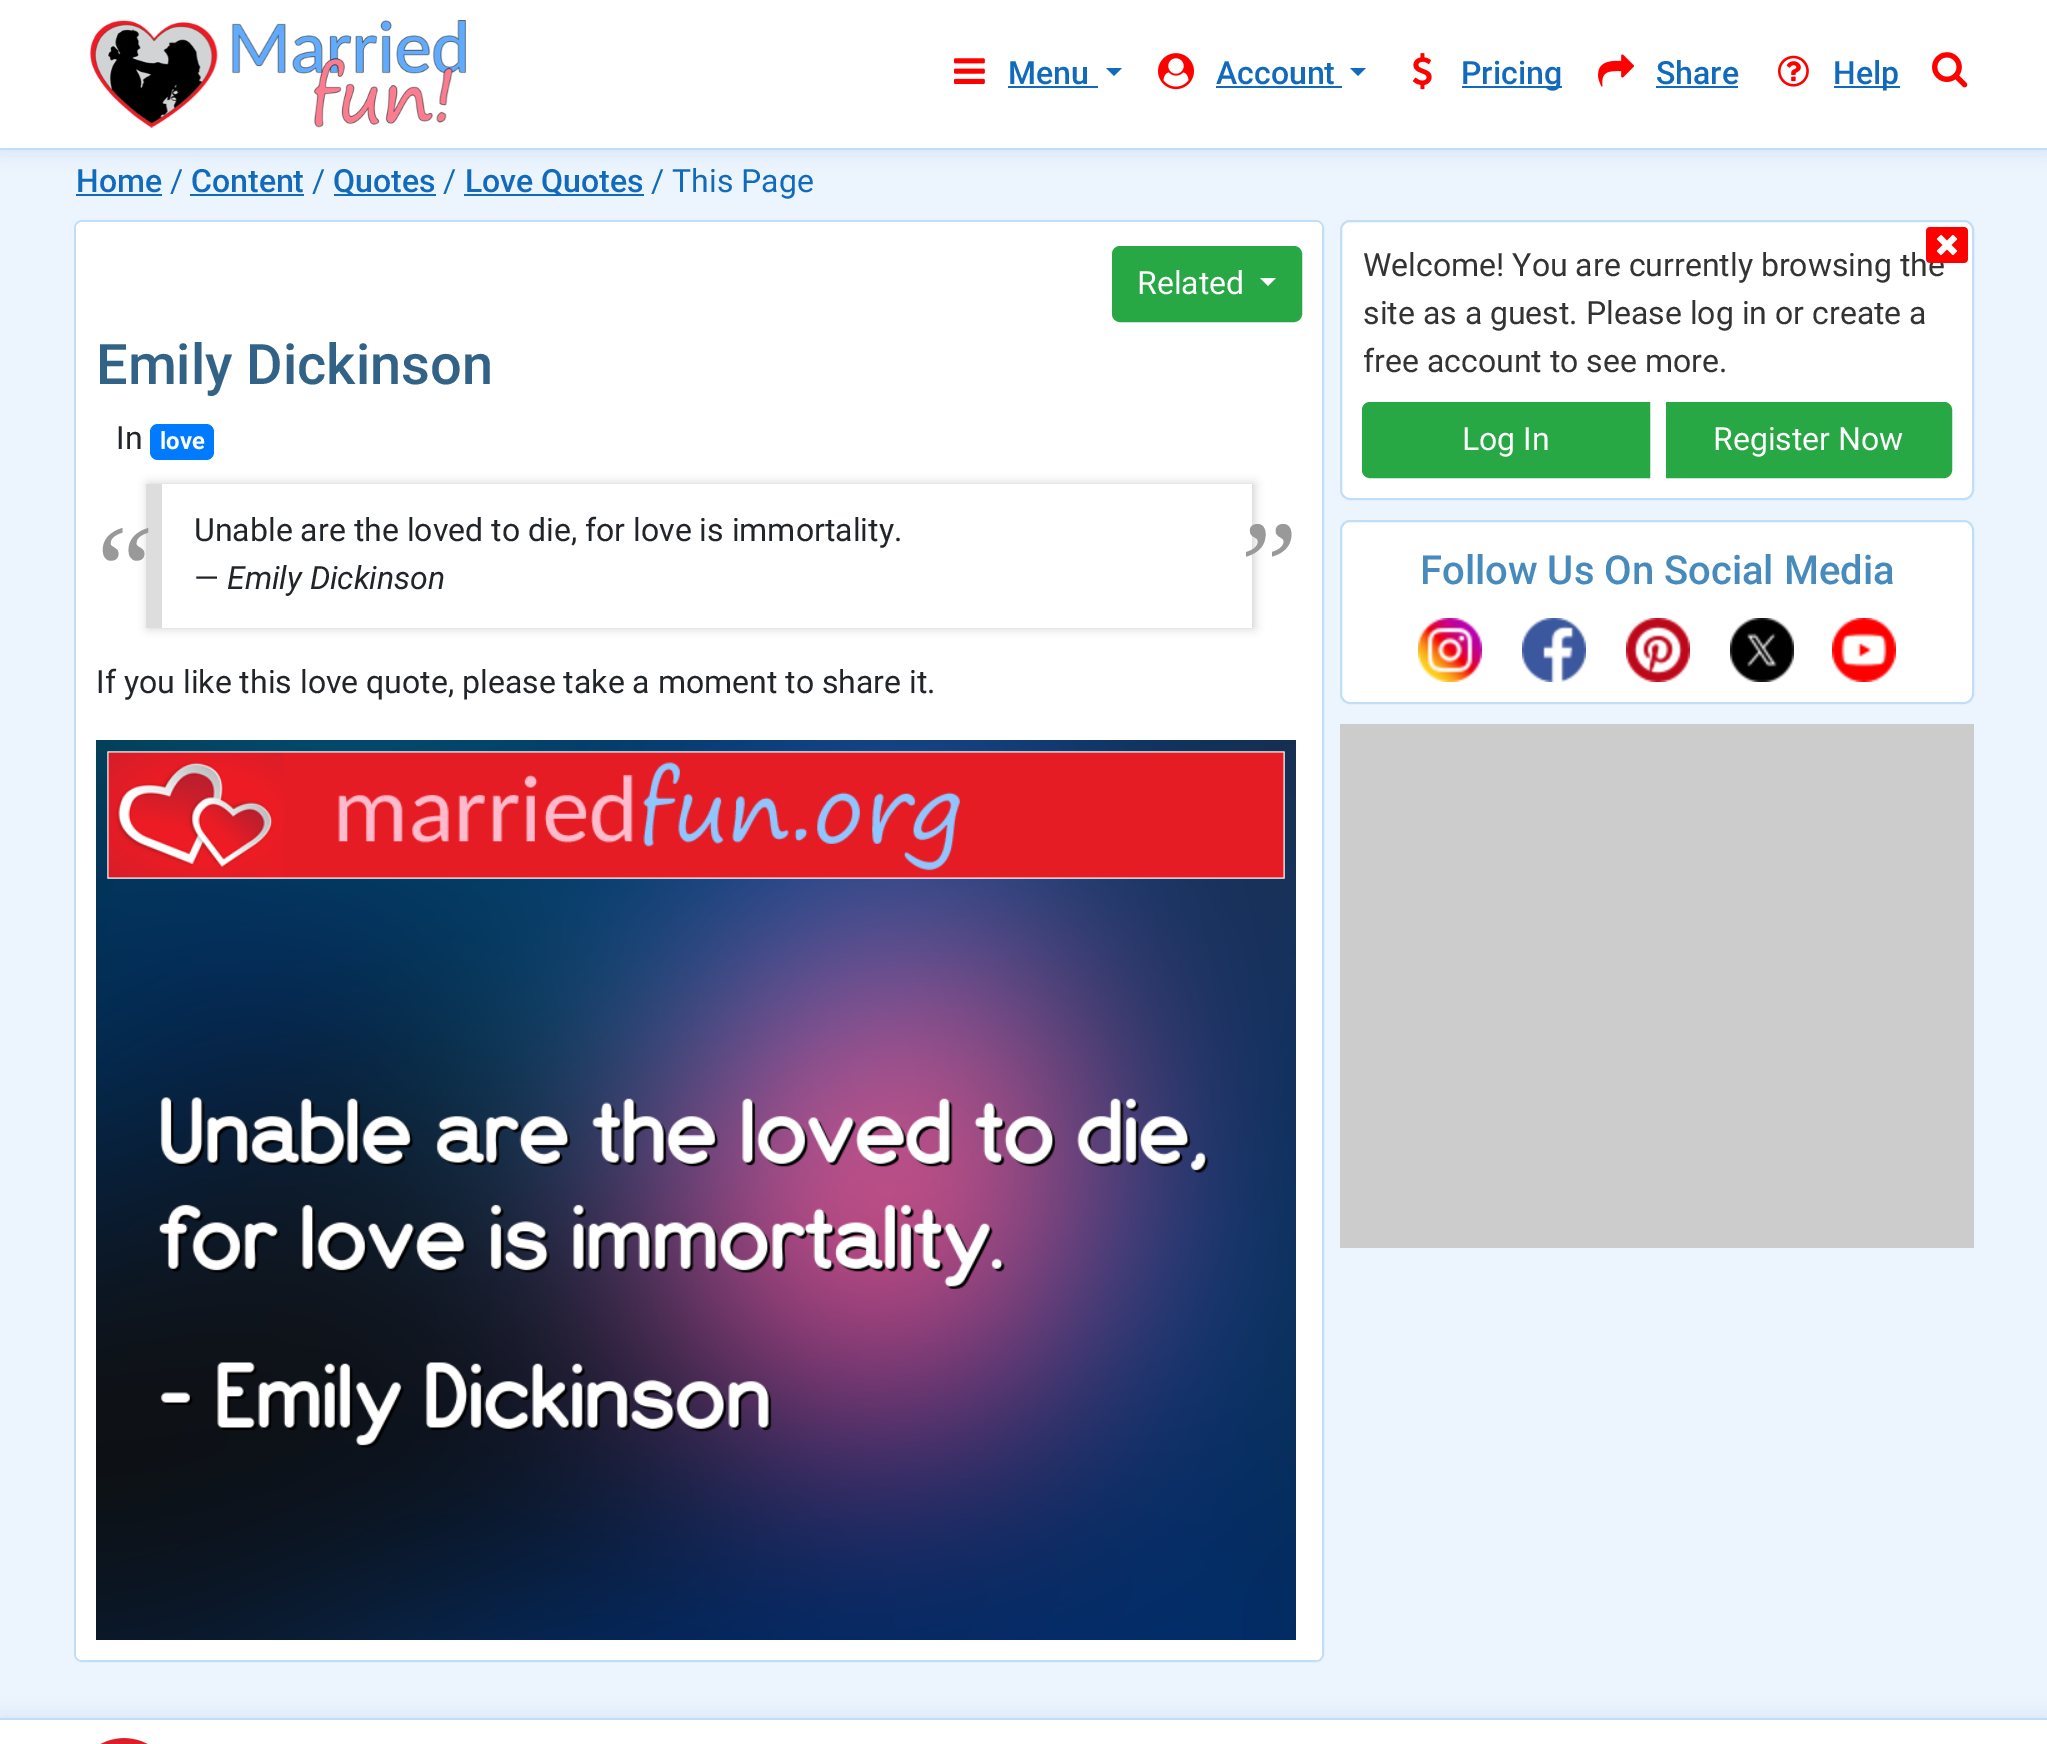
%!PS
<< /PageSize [2047 1744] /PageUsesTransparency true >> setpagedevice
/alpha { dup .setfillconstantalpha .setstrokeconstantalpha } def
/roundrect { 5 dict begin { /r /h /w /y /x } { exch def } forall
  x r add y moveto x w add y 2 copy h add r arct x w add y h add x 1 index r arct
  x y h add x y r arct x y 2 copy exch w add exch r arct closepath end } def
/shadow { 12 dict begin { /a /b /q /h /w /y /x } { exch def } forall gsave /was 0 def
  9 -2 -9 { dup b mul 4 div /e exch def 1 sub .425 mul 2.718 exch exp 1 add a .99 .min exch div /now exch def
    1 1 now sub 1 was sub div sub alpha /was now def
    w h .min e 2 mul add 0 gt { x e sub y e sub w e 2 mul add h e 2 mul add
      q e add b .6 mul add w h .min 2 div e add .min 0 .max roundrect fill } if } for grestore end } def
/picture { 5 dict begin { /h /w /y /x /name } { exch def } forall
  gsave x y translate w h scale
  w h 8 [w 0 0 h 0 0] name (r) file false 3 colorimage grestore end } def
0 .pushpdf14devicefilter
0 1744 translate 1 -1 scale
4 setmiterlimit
0.925 0.961 0.992 setrgbcolor
0 0 2047 1744 rectfill
0.051 0.294 0.518 setrgbcolor
0 0 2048 150 0 10 0.12 shadow
1 setgray
0 0 2047 148 rectfill
0.757 0.871 0.976 setrgbcolor
0 148 2047 2 rectfill
(img1.rgb) 90 20 376 108 picture
(img2.rgb) 954 58 31 26 picture
/Roboto-Medium [32 0 0 -32 0 0] selectfont
0.067 0.416 0.733 setrgbcolor
1008 84 moveto (Menu) show
1008 86 90 2 rectfill
newpath 1106 68 moveto 1122 68 lineto 1114 76 lineto closepath fill
(img3.rgb) 1158 53 36 37 picture
1216 84 moveto (Account) show
1216 86 126 2 rectfill
newpath 1350 68 moveto 1366 68 lineto 1358 76 lineto closepath fill
(img4.rgb) 1413 53 19 37 picture
1462 86 100 2 rectfill
1461 84 moveto (Pricing) show
(img5.rgb) 1598 54 36 33 picture
1656 84 moveto (Share) show
1656 86 82 2 rectfill
(img6.rgb) 1778 55 31 32 picture
1834 86 66 2 rectfill
1833 84 moveto (Help) show
(img7.rgb) 1932 52 36 36 picture
76 192 moveto (Home) show
76 194 86 2 rectfill
/Roboto-Regular [32 0 0 -32 0 0] selectfont
170 192 moveto (/) show
/Roboto-Medium [32 0 0 -32 0 0] selectfont
191 192 moveto (Content) show
190 194 114 2 rectfill
/Roboto-Regular [32 0 0 -32 0 0] selectfont
312 192 moveto (/) show
334 194 102 2 rectfill
/Roboto-Medium [32 0 0 -32 0 0] selectfont
333 192 moveto (Quotes) show
/Roboto-Regular [32 0 0 -32 0 0] selectfont
443 192 moveto (/) show
464 194 180 2 rectfill
/Roboto-Medium [32 0 0 -32 0 0] selectfont
465 192 moveto (Love Quotes) show
/Roboto-Regular [32 0 0 -32 0 0] selectfont
651 192 moveto (/ This Page) show
0.757 0.871 0.976 setrgbcolor
2 setlinewidth
75 221 1248 1440 7 roundrect stroke
1 setgray
76 222 1246 1438 6 roundrect fill
0.157 0.655 0.271 setrgbcolor
1113 247 188 74 7 roundrect gsave fill grestore
stroke
1 setgray
1137 294 moveto (Related) show
newpath 1260 278 moveto 1276 278 lineto 1268 286 lineto closepath fill
/Roboto-Medium [56 0 0 -56 0 0] selectfont
0.196 0.388 0.529 setrgbcolor
96 384 moveto (Emily Dickinson) show
/Roboto-Regular [32 0 0 -32 0 0] selectfont
0.129 0.145 0.161 setrgbcolor
116 449 moveto (In) show
0 0.482 1 setrgbcolor
150 424 64 36 8 roundrect fill
/Roboto-Bold [24 0 0 -24 0 0] selectfont
1 setgray
160 449 moveto (love) show
gsave
newpath 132 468 moveto 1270 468 lineto 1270 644 lineto 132 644 lineto closepath 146 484 moveto 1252 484 lineto 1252 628 lineto 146 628 lineto closepath eoclip newpath
0.8 setgray
148 484 1106 144 0 5 1 shadow
grestore
0.867 setgray
146 484 16 144 rectfill
/LiberationSerif-Italic [128 0 0 -128 0 0] selectfont
0.6 setgray
84 613 moveto (“) show
/Roboto-Regular [32 0 0 -32 0 0] selectfont
0.129 0.145 0.161 setrgbcolor
194 541 moveto (Unable are the loved to die, for love is immortality.) show
/LiberationSerif-Italic [128 0 0 -128 0 0] selectfont
0.6 setgray
1227 609 moveto (”) show
/Roboto-Regular [32 0 0 -32 0 0] selectfont
0.129 0.145 0.161 setrgbcolor
194 589 moveto (—) show
/Roboto-Italic [32 0 0 -32 0 0] selectfont
227 589 moveto (Emily Dickinson) show
/Roboto-Regular [32 0 0 -32 0 0] selectfont
96 693 moveto (If you like this love quote, please take a moment to share it.) show
(img8.rgb) 96 740 1200 900 picture
1 setgray
1341 221 632 278 9 roundrect gsave fill grestore
0.757 0.871 0.976 setrgbcolor
stroke
0.2 setgray
1363 276 moveto (Welcome! You are currently browsing the) show
(img9.rgb) 1926 227 42 36 picture
1363 324 moveto (site as a guest. Please log in or create a) show
1363 372 moveto (free account to see more.) show
0.157 0.655 0.271 setrgbcolor
newpath 1370 403 moveto 1649 403 lineto 1649 477 lineto 1370 477 lineto 1366 477 1363 474 1363 470 curveto 1363 410 lineto 1363 406 1366 403 1370 403 curveto closepath gsave fill grestore
stroke
1 setgray
1462 450 moveto (Log In) show
0.157 0.655 0.271 setrgbcolor
newpath 1667 403 moveto 1944 403 lineto 1948 403 1951 406 1951 410 curveto 1951 470 lineto 1951 474 1948 477 1944 477 curveto 1667 477 lineto closepath gsave fill grestore
stroke
1 setgray
1713 450 moveto (Register Now) show
1341 521 632 182 9 roundrect gsave fill grestore
0.757 0.871 0.976 setrgbcolor
stroke
/Roboto-Medium [40 0 0 -40 0 0] selectfont
0.278 0.541 0.737 setrgbcolor
1420 584 moveto (Follow Us On Social Media) show
(img10.rgb) 1418 618 64 64 picture
(img11.rgb) 1522 618 64 64 picture
(img12.rgb) 1626 618 64 64 picture
(img13.rgb) 1730 618 64 64 picture
(img14.rgb) 1832 618 64 64 picture
0.8 setgray
1340 724 634 524 rectfill
0.051 0.294 0.518 setrgbcolor
0 1718 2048 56 0 10 0.12 shadow
1 setgray
0 1720 2047 24 rectfill
0.757 0.871 0.976 setrgbcolor
0 1718 2047 2 rectfill
(img15.rgb) 100 1738 48 6 picture
.poppdf14devicefilter showpage
